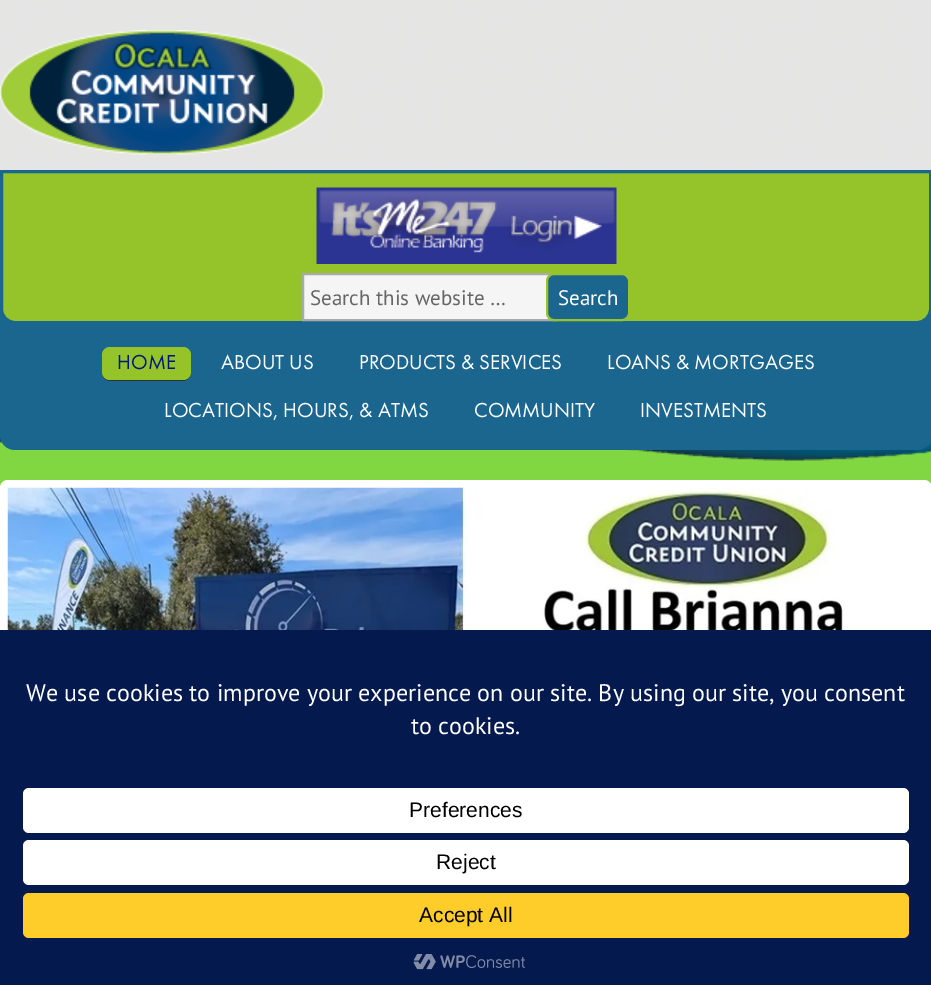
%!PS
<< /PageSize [931 985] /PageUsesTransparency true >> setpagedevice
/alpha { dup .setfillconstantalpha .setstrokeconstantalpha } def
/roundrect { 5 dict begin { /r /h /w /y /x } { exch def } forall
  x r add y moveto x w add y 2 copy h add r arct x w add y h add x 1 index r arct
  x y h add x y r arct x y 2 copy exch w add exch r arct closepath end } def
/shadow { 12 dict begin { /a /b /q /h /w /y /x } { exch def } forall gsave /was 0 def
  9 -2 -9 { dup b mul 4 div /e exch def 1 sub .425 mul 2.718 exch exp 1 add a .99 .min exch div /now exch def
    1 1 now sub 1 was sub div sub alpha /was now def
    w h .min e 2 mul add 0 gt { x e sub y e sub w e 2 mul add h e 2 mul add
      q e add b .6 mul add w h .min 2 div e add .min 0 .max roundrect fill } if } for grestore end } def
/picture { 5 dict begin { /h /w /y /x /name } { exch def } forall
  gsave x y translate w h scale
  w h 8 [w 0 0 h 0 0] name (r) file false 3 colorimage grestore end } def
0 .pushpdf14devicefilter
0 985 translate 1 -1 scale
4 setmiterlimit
0.506 0.843 0.259 setrgbcolor
0 0 931 985 rectfill
(img1.rgb) 0 0 931 461 picture
(img2.rgb) 0 30 324 125 picture
0.102 0.4 0.561 setrgbcolor
0 203 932 247 15 roundrect fill
0.58 0.769 0.165 setrgbcolor
newpath 1.5 171.5 moveto 930.5 171.5 lineto 930.5 309 lineto 930.5 316.5 924.5 322.5 917 322.5 curveto 15 322.5 lineto 7.5 322.5 1.5 316.5 1.5 309 curveto closepath gsave fill grestore
0.102 0.4 0.561 setrgbcolor
3 setlinewidth
stroke
(img3.rgb) 316 187 301 77 picture
0.961 setgray
304 275 245 44 rectfill
0.667 setgray
2 setlinewidth
303 274 253 46 rectstroke
/PTSans-Regular [21 0 0 -21 0 0] selectfont
0.4 setgray
310 305 moveto (Search this website …) show
0.102 0.4 0.561 setrgbcolor
547 274 82 46 7 roundrect gsave fill grestore
0.58 0.769 0.165 setrgbcolor
stroke
1 setgray
558 305 moveto (Search) show
0.2 setgray
newpath 102 372 moveto 102 373 lineto 102 377 106 381 110 381 curveto 183 381 lineto 187 381 191 377 191 373 curveto 191 356 lineto 190 353 lineto 190 372 lineto 190 376 187 380 183 380 curveto 110 380 lineto 105 380 102 376 102 372 curveto closepath fill
0.58 0.769 0.165 setrgbcolor
102 347 89 33 8 roundrect fill
/FuturaPT-Regular [21 0 0 -21 0 0] selectfont
0 0.094 0.475 setrgbcolor
117 369 moveto (HOME) show
1 setgray
221 369 moveto (ABOUT US) show
359 369 moveto (PRODUCTS & SERVICES) show
607 369 moveto (LOANS & MORTGAGES) show
164 417 moveto (LOCATIONS, HOURS, & ATMS) show
474 417 moveto (COMMUNITY) show
640 417 moveto (INVESTMENTS) show
0.6 setgray
0 482 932 325 8 1.5 1 shadow
1 setgray
0 480 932 326 8 roundrect fill
(img4.rgb) 7 487 848 143 picture
0.016 0.098 0.306 setrgbcolor
0 630 931 355 rectfill
/PTSans-Regular [24 0 0 -24 0 0] selectfont
1 setgray
26 701 moveto (We use cookies to improve your experience on our site. By using our site, you consent) show
411 734 moveto (to cookies.) show
23 788 886 45 6 roundrect fill
/LiberationSans-Regular [21 0 0 -21 0 0] selectfont
0 setgray
409 817 moveto (Preferences) show
1 setgray
23 840 886 45 6 roundrect fill
0 setgray
436 869 moveto (Reject) show
1 0.804 0.165 setrgbcolor
23 893 886 45 6 roundrect fill
0 setgray
419 922 moveto (Accept All) show
(img5.rgb) 413 954 112 16 picture
.poppdf14devicefilter showpage
